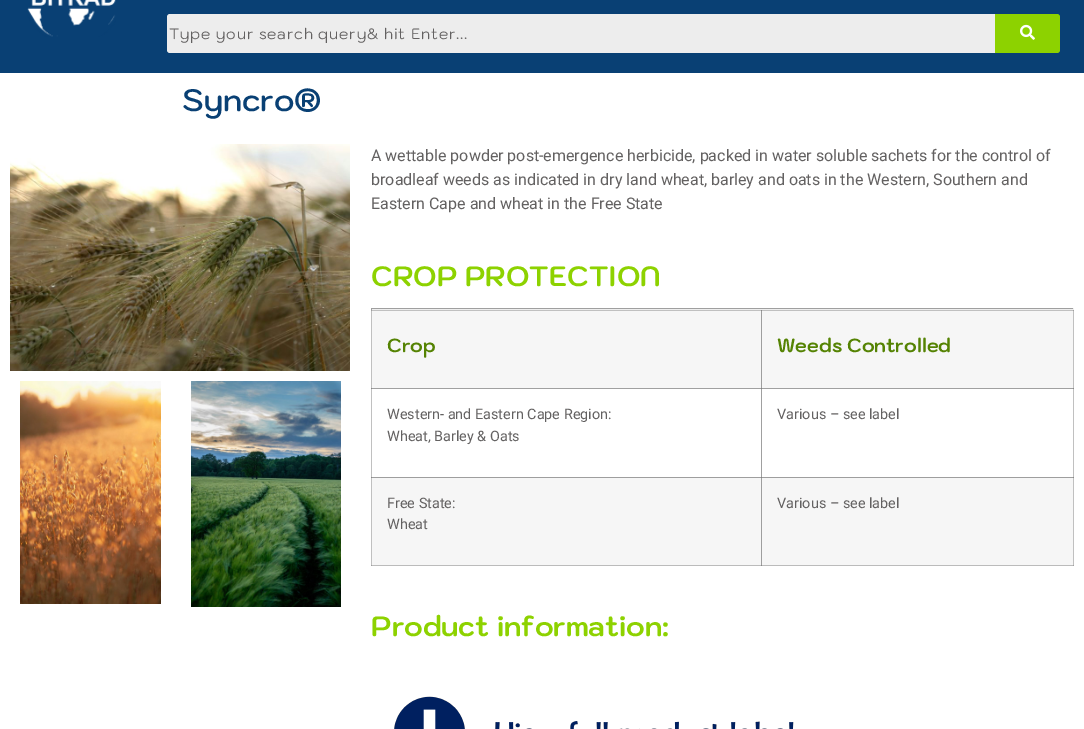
%!PS
<< /PageSize [1084 729] >> setpagedevice
/picture { 5 dict begin { /h /w /y /x /name } { exch def } forall
  gsave x y translate w h scale
  w h 8 [w 0 0 h 0 0] name (r) file false 3 colorimage grestore end } def
0 729 translate 1 -1 scale
4 setmiterlimit
1 setgray
0 0 1084 729 rectfill
0.753 setgray
371 310 1 256 rectfill
371 310 391 1 rectfill
0.627 setgray
371 310 1 1 rectfill
0.753 setgray
1073 310 1 256 rectfill
0.627 setgray
371 388 391 1 rectfill
0.533 setgray
371 388 1 1 rectfill
0.627 setgray
761 388 1 90 rectfill
371 565 1 1 rectfill
0.533 setgray
371 477 1 1 rectfill
0.627 setgray
1073 565 1 1 rectfill
0.533 setgray
1073 477 1 1 rectfill
0.035 0.251 0.455 setrgbcolor
0 0 1084 73 rectfill
(img1.rgb) 27 0 89 37 picture
0.929 setgray
newpath 170 14 moveto 995 14 lineto 995 53 lineto 170 53 lineto 168.5 53 167 51.5 167 50 curveto 167 17 lineto 167 15.5 168.5 14 170 14 curveto closepath fill
gsave
169 24 825 19 rectclip
/Kodchasan-Regular [15 0 0 -15 0 0] selectfont
0.388 0.38 0.38 setrgbcolor
169 39 moveto 0.8 0 (Type your search query& hit Enter...) ashow
grestore
0.553 0.824 0 setrgbcolor
newpath 995 14 moveto 1057 14 lineto 1058.5 14 1060 15.5 1060 17 curveto 1060 50 lineto 1060 51.5 1058.5 53 1057 53 curveto 995 53 lineto closepath fill
(img2.rgb) 1020 24 15 16 picture
/Kodchasan-SemiBold [31 0 0 -31 0 0] selectfont
0.035 0.251 0.455 setrgbcolor
182 111 moveto (Syncro®) show
(img3.rgb) 10 144 340 227 picture
(img4.rgb) 20 381 141 223 picture
(img5.rgb) 191 381 150 226 picture
/Roboto-Regular [16 0 0 -16 0 0] selectfont
0.388 0.38 0.38 setrgbcolor
371 161 moveto (A wettable powder post-emergence herbicide, packed in water soluble sachets for the control of) show
371 185 moveto (broadleaf weeds as indicated in dry land wheat, barley and oats in the Western, Southern and) show
371 209 moveto (Eastern Cape and wheat in the Free State) show
/Kodchasan-Bold [28 0 0 -28 0 0] selectfont
0.553 0.824 0 setrgbcolor
371 286 moveto (CROP PROTECTION) show
0.624 setgray
371 308 703 1 rectfill
0.933 setgray
1073 308 1 2 rectfill
371 309 703 1 rectfill
0.624 setgray
371 308 1 2 rectfill
0.965 setgray
372 311 389 77 rectfill
/Kodchasan-Bold [19 0 0 -19 0 0] selectfont
0.333 0.514 0.012 setrgbcolor
387 352 moveto (Crop) show
0.965 setgray
762 311 311 77 rectfill
0.62 setgray
761 311 1 77 rectfill
0.753 setgray
761 310 313 1 rectfill
0.533 setgray
761 310 1 1 rectfill
0.627 setgray
1073 310 1 1 rectfill
0.333 0.514 0.012 setrgbcolor
777 352 moveto (Weeds Controlled) show
/Roboto-Regular [14.4 0 0 -14.4 0 0] selectfont
0.388 0.38 0.38 setrgbcolor
387 419 moveto (Western- and Eastern Cape Region:) show
387 441 moveto (Wheat, Barley & Oats) show
0.627 setgray
761 388 313 1 rectfill
0.506 setgray
761 388 1 1 rectfill
0.533 setgray
1073 388 1 1 rectfill
0.388 0.38 0.38 setrgbcolor
777 419 moveto (Various – see label) show
0.965 setgray
372 478 389 87 rectfill
0.733 setgray
372 565 389 1 rectfill
0.62 setgray
372 477 389 1 rectfill
0.388 0.38 0.38 setrgbcolor
387 508 moveto (Free State:) show
387 529 moveto (Wheat) show
0.965 setgray
762 478 311 87 rectfill
0.62 setgray
761 477 1 89 rectfill
0.733 setgray
761 565 312 1 rectfill
0.533 setgray
761 565 1 1 rectfill
0.62 setgray
761 477 312 1 rectfill
0.506 setgray
761 477 1 1 rectfill
0.388 0.38 0.38 setrgbcolor
777 508 moveto (Various – see label) show
/Kodchasan-Bold [28 0 0 -28 0 0] selectfont
0.553 0.824 0 setrgbcolor
371 636 moveto (Product information:) show
(img6.rgb) 394 696 400 33 picture
showpage
